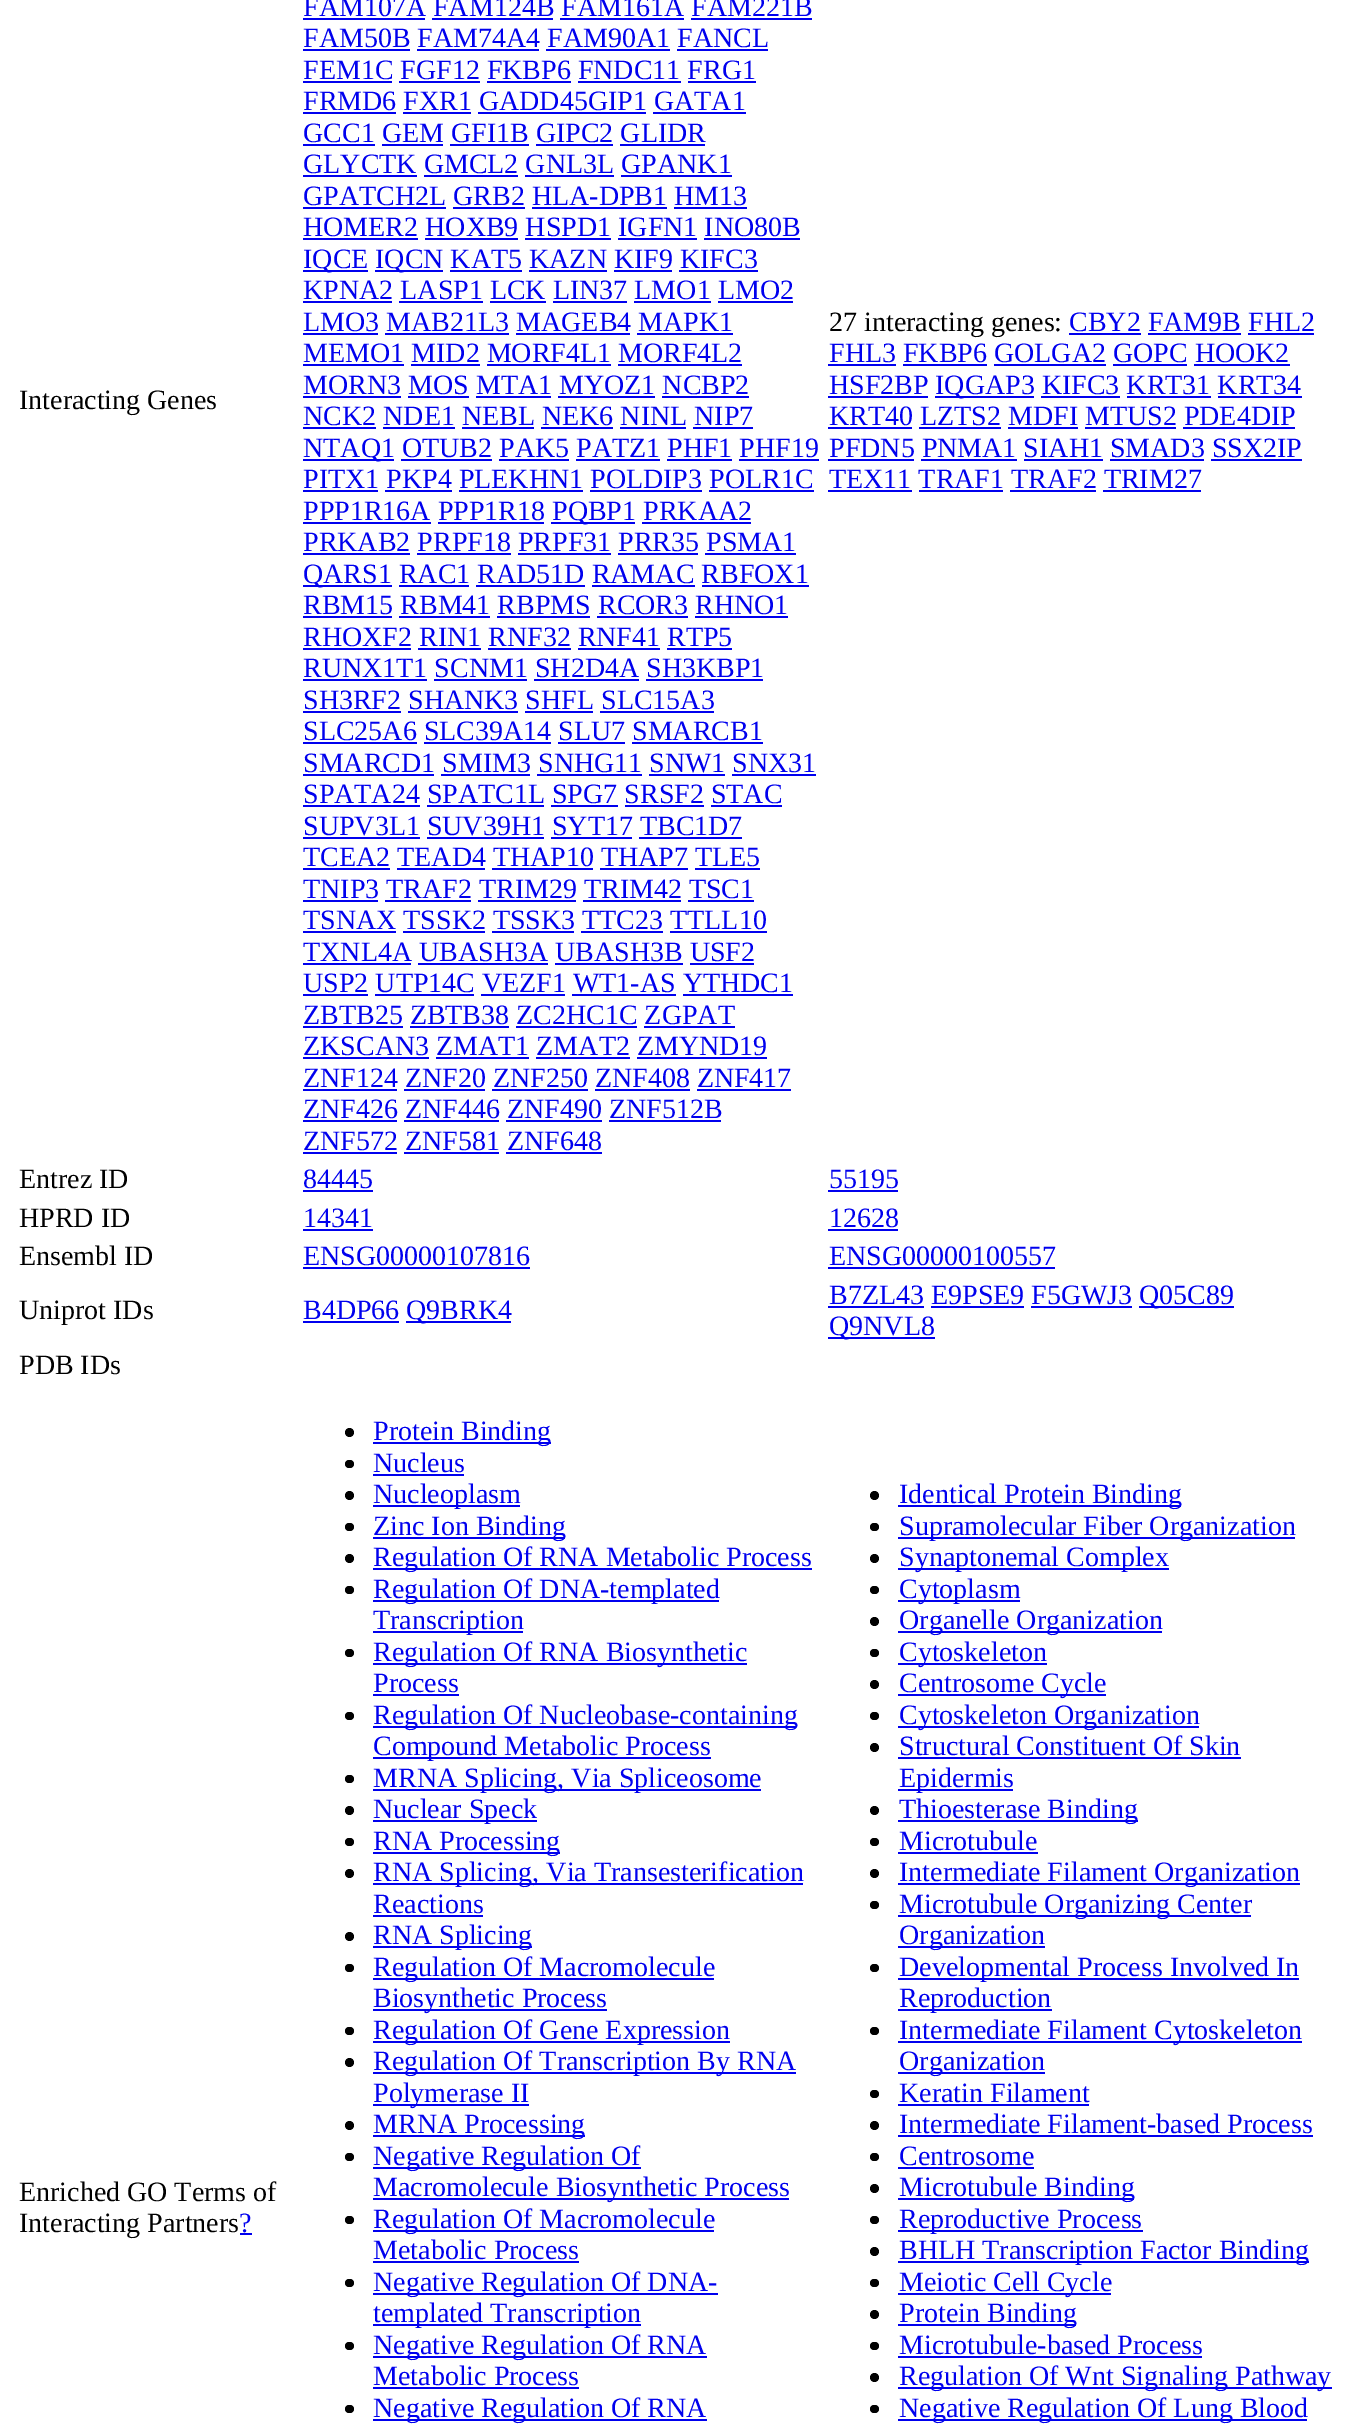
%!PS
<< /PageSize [1364 2436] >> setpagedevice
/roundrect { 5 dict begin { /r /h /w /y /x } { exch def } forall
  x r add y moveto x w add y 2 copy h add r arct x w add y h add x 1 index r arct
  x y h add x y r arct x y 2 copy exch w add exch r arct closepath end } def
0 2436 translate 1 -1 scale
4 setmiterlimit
1 setgray
0 0 1364 2436 rectfill
/LiberationSerif-Regular [28 0 0 -28 0 0] selectfont
0 setgray
19 409 moveto (Interacting Genes) show
0 0 0.933 setrgbcolor
303 16 moveto (FAM107A FAM124B FAM161A FAM221B) show
303 18 122 2 rectfill
432 18 121 2 rectfill
560 18 124 2 rectfill
691 18 121 2 rectfill
303 47 moveto (FAM50B FAM74A4 FAM90A1 FANCL) show
303 49 107 2 rectfill
417 49 122 2 rectfill
546 49 124 2 rectfill
677 49 91 2 rectfill
303 79 moveto (FEM1C FGF12 FKBP6 FNDC11 FRG1) show
303 81 89 2 rectfill
399 81 81 2 rectfill
487 81 84 2 rectfill
578 81 103 2 rectfill
688 81 68 2 rectfill
303 110 moveto (FRMD6 FXR1 GADD45GIP1 GATA1) show
303 112 93 2 rectfill
403 112 68 2 rectfill
478 112 168 2 rectfill
653 112 93 2 rectfill
303 142 moveto (GCC1 GEM GFI1B GIPC2 GLIDR) show
303 144 72 2 rectfill
382 144 61 2 rectfill
450 144 79 2 rectfill
536 144 77 2 rectfill
620 144 85 2 rectfill
303 173 moveto (GLYCTK GMCL2 GNL3L GPANK1) show
303 175 114 2 rectfill
424 175 94 2 rectfill
525 175 89 2 rectfill
621 175 111 2 rectfill
303 205 moveto (GPATCH2L GRB2 HLA-DPB1 HM13) show
303 207 143 2 rectfill
453 207 72 2 rectfill
532 207 135 2 rectfill
674 207 73 2 rectfill
303 236 moveto (HOMER2 HOXB9 HSPD1 IGFN1 INO80B) show
303 238 115 2 rectfill
425 238 93 2 rectfill
525 238 86 2 rectfill
618 238 79 2 rectfill
704 238 96 2 rectfill
303 270 65 2 rectfill
303 268 moveto (IQCE) show
375 270 68 2 rectfill
375 268 moveto (IQCN KAT5 KAZN KIF9 KIFC3) show
450 270 72 2 rectfill
529 270 78 2 rectfill
614 270 58 2 rectfill
679 270 79 2 rectfill
303 299 moveto (KPNA2 LASP1 LCK LIN37 LMO1 LMO2) show
303 301 89 2 rectfill
399 301 84 2 rectfill
490 301 56 2 rectfill
553 301 74 2 rectfill
634 301 77 2 rectfill
718 301 75 2 rectfill
303 331 moveto (LMO3 MAB21L3 MAGEB4 MAPK1) show
303 333 75 2 rectfill
385 333 124 2 rectfill
516 333 114 2 rectfill
637 333 96 2 rectfill
303 362 moveto (MEMO1 MID2 MORF4L1 MORF4L2) show
303 364 101 2 rectfill
411 364 69 2 rectfill
487 364 124 2 rectfill
618 364 124 2 rectfill
303 394 moveto (MORN3 MOS MTA1 MYOZ1 NCBP2) show
303 396 98 2 rectfill
408 396 61 2 rectfill
476 396 75 2 rectfill
558 396 97 2 rectfill
662 396 87 2 rectfill
303 425 moveto (NCK2 NDE1 NEBL NEK6 NINL NIP7) show
303 427 73 2 rectfill
383 427 72 2 rectfill
462 427 72 2 rectfill
541 427 72 2 rectfill
620 427 66 2 rectfill
693 427 60 2 rectfill
303 459 91 2 rectfill
303 457 moveto (NTAQ1 OTUB2 PAK5 PATZ1 PHF1 PHF19) show
401 459 91 2 rectfill
499 459 70 2 rectfill
576 459 84 2 rectfill
667 459 65 2 rectfill
739 459 80 2 rectfill
303 488 moveto (PITX1 PKP4 PLEKHN1 POLDIP3 POLR1C) show
303 490 75 2 rectfill
385 490 67 2 rectfill
459 490 124 2 rectfill
590 490 112 2 rectfill
709 490 105 2 rectfill
303 520 moveto (PPP1R16A PPP1R18) show
303 522 128 2 rectfill
551 522 84 2 rectfill
552 520 moveto (PQBP1 PRKAA2) show
438 522 106 2 rectfill
642 522 109 2 rectfill
303 551 moveto (PRKAB2 PRPF18 PRPF31 PRR35 PSMA1) show
303 553 107 2 rectfill
417 553 94 2 rectfill
518 553 93 2 rectfill
618 553 80 2 rectfill
705 553 91 2 rectfill
303 585 89 2 rectfill
303 583 moveto (QARS1 RAC1 RAD51D RAMAC RBFOX1) show
399 585 70 2 rectfill
476 585 109 2 rectfill
592 585 103 2 rectfill
702 585 107 2 rectfill
303 614 moveto (RBM15 RBM41 RBPMS RCOR3 RHNO1) show
303 616 89 2 rectfill
399 616 91 2 rectfill
497 616 93 2 rectfill
597 616 91 2 rectfill
695 616 93 2 rectfill
303 646 moveto (RHOXF2 RIN1 RNF32 RNF41 RTP5) show
303 648 108 2 rectfill
418 648 63 2 rectfill
488 648 83 2 rectfill
578 648 82 2 rectfill
667 648 65 2 rectfill
303 677 moveto (RUNX1T1 SCNM1 SH2D4A SH3KBP1) show
303 679 124 2 rectfill
434 679 93 2 rectfill
534 679 105 2 rectfill
646 679 117 2 rectfill
303 709 moveto (SH3RF2 SHANK3 SHFL SLC15A3) show
303 711 98 2 rectfill
408 711 110 2 rectfill
525 711 68 2 rectfill
600 711 114 2 rectfill
303 740 moveto (SLC25A6 SLC39A14 SLU7 SMARCB1) show
303 742 114 2 rectfill
424 742 127 2 rectfill
558 742 67 2 rectfill
632 742 131 2 rectfill
303 772 moveto (SMARCD1 SMIM3 SNHG11 SNW1 SNX31) show
303 774 131 2 rectfill
441 774 89 2 rectfill
537 774 105 2 rectfill
649 774 76 2 rectfill
732 774 84 2 rectfill
303 803 moveto (SPATA24 SPATC1L SPG7 SRSF2 STAC) show
303 805 117 2 rectfill
427 805 117 2 rectfill
551 805 67 2 rectfill
625 805 79 2 rectfill
711 805 71 2 rectfill
303 835 moveto (SUPV3L1 SUV39H1 SYT17 TBC1D7) show
303 837 117 2 rectfill
427 837 117 2 rectfill
551 837 81 2 rectfill
639 837 103 2 rectfill
303 866 moveto (TCEA2 TEAD4 THAP10 THAP7 TLE5) show
303 868 87 2 rectfill
397 868 88 2 rectfill
492 868 101 2 rectfill
600 868 88 2 rectfill
695 868 65 2 rectfill
303 898 moveto (TNIP3 TRAF2 TRIM29 TRIM42 TSC1) show
303 900 75 2 rectfill
385 900 86 2 rectfill
478 900 98 2 rectfill
583 900 98 2 rectfill
688 900 66 2 rectfill
303 929 moveto (TSNAX TSSK2 TSSK3 TTC23 TTLL10) show
303 931 93 2 rectfill
403 931 82 2 rectfill
492 931 82 2 rectfill
581 931 82 2 rectfill
670 931 97 2 rectfill
303 961 moveto (TXNL4A UBASH3A UBASH3B USF2) show
303 963 108 2 rectfill
418 963 130 2 rectfill
555 963 128 2 rectfill
690 963 64 2 rectfill
303 992 moveto (USP2 UTP14C VEZF1 WT1-AS YTHDC1) show
303 994 65 2 rectfill
375 994 99 2 rectfill
481 994 84 2 rectfill
572 994 104 2 rectfill
683 994 110 2 rectfill
303 1024 moveto (ZBTB25 ZBTB38 ZC2HC1C ZGPAT) show
303 1026 100 2 rectfill
410 1026 99 2 rectfill
516 1026 121 2 rectfill
644 1026 91 2 rectfill
303 1055 moveto (ZKSCAN3 ZMAT1 ZMAT2 ZMYND19) show
303 1057 126 2 rectfill
436 1057 93 2 rectfill
536 1057 94 2 rectfill
637 1057 130 2 rectfill
303 1087 moveto (ZNF124 ZNF20 ZNF250 ZNF408 ZNF417) show
303 1089 94 2 rectfill
404 1089 81 2 rectfill
492 1089 96 2 rectfill
595 1089 95 2 rectfill
697 1089 94 2 rectfill
303 1118 moveto (ZNF426 ZNF446 ZNF490 ZNF512B) show
303 1120 94 2 rectfill
404 1120 95 2 rectfill
506 1120 96 2 rectfill
609 1120 112 2 rectfill
303 1150 moveto (ZNF572 ZNF581 ZNF648) show
303 1152 94 2 rectfill
404 1152 95 2 rectfill
506 1152 96 2 rectfill
0 setgray
829 331 moveto (27 interacting genes:) show
0 0 0.933 setrgbcolor
1069 331 moveto (CBY2 FAM9B FHL2) show
1069 333 72 2 rectfill
1148 333 93 2 rectfill
1248 333 66 2 rectfill
829 362 moveto (FHL3 FKBP6 GOLGA2 GOPC HOOK2) show
828 364 68 2 rectfill
903 364 84 2 rectfill
994 364 112 2 rectfill
1113 364 74 2 rectfill
1194 364 96 2 rectfill
829 394 moveto (HSF2BP) show
828 396 100 2 rectfill
935 396 99 2 rectfill
935 394 moveto (IQGAP3 KIFC3 KRT31 KRT34) show
1041 396 79 2 rectfill
1127 396 84 2 rectfill
1218 396 84 2 rectfill
829 425 moveto (KRT40 LZTS2 MDFI MTUS2 PDE4DIP) show
828 427 84 2 rectfill
919 427 82 2 rectfill
1008 427 70 2 rectfill
1085 427 91 2 rectfill
1183 427 112 2 rectfill
829 457 moveto (PFDN5 PNMA1 SIAH1 SMAD3 SSX2IP) show
828 459 86 2 rectfill
921 459 96 2 rectfill
1024 459 79 2 rectfill
1110 459 94 2 rectfill
1211 459 91 2 rectfill
829 488 moveto (TEX11 TRAF1 TRAF2 TRIM27) show
828 490 84 2 rectfill
919 490 84 2 rectfill
1010 490 86 2 rectfill
1103 490 98 2 rectfill
0 setgray
19 1188 moveto (Entrez ID) show
0 0 0.933 setrgbcolor
303 1188 moveto (84445) show
303 1190 70 2 rectfill
829 1188 moveto (55195) show
828 1190 70 2 rectfill
0 setgray
19 1227 moveto (HPRD ID) show
0 0 0.933 setrgbcolor
303 1227 moveto (14341) show
303 1229 70 2 rectfill
829 1227 moveto (12628) show
828 1229 70 2 rectfill
0 setgray
19 1265 moveto (Ensembl ID) show
0 0 0.933 setrgbcolor
303 1265 moveto (ENSG00000107816) show
303 1267 227 2 rectfill
829 1265 moveto (ENSG00000100557) show
828 1267 227 2 rectfill
0 setgray
19 1319 moveto (Uniprot IDs) show
0 0 0.933 setrgbcolor
303 1319 moveto (B4DP66) show
303 1321 96 2 rectfill
406 1321 105 2 rectfill
406 1319 moveto (Q9BRK4) show
829 1304 moveto (B7ZL43 E9PSE9 F5GWJ3) show
828 1306 96 2 rectfill
1139 1306 95 2 rectfill
1139 1304 moveto (Q05C89) show
931 1306 93 2 rectfill
1031 1306 101 2 rectfill
828 1337 107 2 rectfill
829 1335 moveto (Q9NVL8) show
0 setgray
19 1374 moveto (PDB IDs) show
19 2201 moveto (Enriched GO Terms of) show
19 2232 moveto (Interacting Partners) show
0 0 0.933 setrgbcolor
239 2232 moveto (?) show
240 2233 12 2 rectfill
0 setgray
newpath 349.5 1432.5 4.5 0 360 arc closepath fill
0 0 0.933 setrgbcolor
373 1442 178 2 rectfill
373 1440 moveto (Protein Binding) show
0 setgray
345 1460 9 8 4 roundrect fill
0 0 0.933 setrgbcolor
373 1472 moveto (Nucleus) show
373 1474 91 2 rectfill
0 setgray
newpath 349.5 1495.5 4.5 0 360 arc closepath fill
0 0 0.933 setrgbcolor
373 1505 147 2 rectfill
373 1503 moveto (Nucleoplasm) show
0 setgray
345 1523 9 8 4 roundrect fill
0 0 0.933 setrgbcolor
373 1537 192 2 rectfill
373 1535 moveto (Zinc Ion Binding) show
0 setgray
newpath 349.5 1558.5 4.5 0 360 arc closepath fill
0 0 0.933 setrgbcolor
373 1568 439 2 rectfill
373 1566 moveto (Regulation Of RNA Metabolic Process) show
0 setgray
345 1586 9 8 4 roundrect fill
0 0 0.933 setrgbcolor
373 1600 346 2 rectfill
373 1598 moveto (Regulation Of DNA-templated) show
373 1631 150 2 rectfill
373 1629 moveto (Transcription) show
0 setgray
345 1649 9 8 4 roundrect fill
0 0 0.933 setrgbcolor
373 1663 374 2 rectfill
373 1661 moveto (Regulation Of RNA Biosynthetic) show
373 1692 moveto (Process) show
373 1694 86 2 rectfill
0 setgray
345 1712 9 8 4 roundrect fill
0 0 0.933 setrgbcolor
373 1726 423 2 rectfill
373 1724 moveto (Regulation Of Nucleobase-containing) show
373 1757 338 2 rectfill
373 1755 moveto (Compound Metabolic Process) show
0 setgray
345 1775 9 8 4 roundrect fill
0 0 0.933 setrgbcolor
373 1789 388 2 rectfill
373 1787 moveto (MRNA Splicing, Via Spliceosome) show
0 setgray
newpath 349.5 1810.5 4.5 0 360 arc closepath fill
0 0 0.933 setrgbcolor
373 1820 164 2 rectfill
373 1818 moveto (Nuclear Speck) show
0 setgray
345 1838 9 8 4 roundrect fill
0 0 0.933 setrgbcolor
373 1852 187 2 rectfill
373 1850 moveto (RNA Processing) show
0 setgray
newpath 349.5 1873.5 4.5 0 360 arc closepath fill
0 0 0.933 setrgbcolor
373 1883 430 2 rectfill
373 1881 moveto (RNA Splicing, Via Transesterification) show
373 1913 moveto (Reactions) show
373 1915 110 2 rectfill
0 setgray
newpath 349.5 1936.5 4.5 0 360 arc closepath fill
0 0 0.933 setrgbcolor
373 1946 159 2 rectfill
373 1944 moveto (RNA Splicing) show
0 setgray
345 1964 9 8 4 roundrect fill
0 0 0.933 setrgbcolor
373 1978 341 2 rectfill
373 1976 moveto (Regulation Of Macromolecule) show
373 2009 234 2 rectfill
373 2007 moveto (Biosynthetic Process) show
0 setgray
345 2027 9 8 4 roundrect fill
0 0 0.933 setrgbcolor
373 2041 357 2 rectfill
373 2039 moveto (Regulation Of Gene Expression) show
0 setgray
newpath 349.5 2062.5 4.5 0 360 arc closepath fill
0 0 0.933 setrgbcolor
373 2072 423 2 rectfill
373 2070 moveto (Regulation Of Transcription By RNA) show
373 2104 156 2 rectfill
373 2102 moveto (Polymerase II) show
0 setgray
newpath 349.5 2125.5 4.5 0 360 arc closepath fill
0 0 0.933 setrgbcolor
373 2135 212 2 rectfill
373 2133 moveto (MRNA Processing) show
0 setgray
345 2153 9 8 4 roundrect fill
0 0 0.933 setrgbcolor
373 2167 268 2 rectfill
373 2165 moveto (Negative Regulation Of) show
373 2198 416 2 rectfill
373 2196 moveto (Macromolecule Biosynthetic Process) show
0 setgray
345 2216 9 8 4 roundrect fill
0 0 0.933 setrgbcolor
373 2230 341 2 rectfill
373 2228 moveto (Regulation Of Macromolecule) show
373 2259 moveto (Metabolic Process) show
373 2261 206 2 rectfill
0 setgray
345 2279 9 8 4 roundrect fill
0 0 0.933 setrgbcolor
373 2293 345 2 rectfill
373 2291 moveto (Negative Regulation Of DNA-) show
373 2324 268 2 rectfill
373 2322 moveto (templated Transcription) show
0 setgray
345 2342 9 8 4 roundrect fill
0 0 0.933 setrgbcolor
373 2356 334 2 rectfill
373 2354 moveto (Negative Regulation Of RNA) show
373 2385 moveto (Metabolic Process) show
373 2387 206 2 rectfill
0 setgray
345 2405 9 8 4 roundrect fill
0 0 0.933 setrgbcolor
373 2419 334 2 rectfill
373 2417 moveto (Negative Regulation Of RNA) show
0 setgray
newpath 874.5 1495.5 4.5 0 360 arc closepath fill
0 0 0.933 setrgbcolor
898 1505 283 2 rectfill
899 1503 moveto (Identical Protein Binding) show
0 setgray
870 1523 9 8 4 roundrect fill
0 0 0.933 setrgbcolor
898 1537 397 2 rectfill
899 1535 moveto (Supramolecular Fiber Organization) show
0 setgray
newpath 874.5 1558.5 4.5 0 360 arc closepath fill
0 0 0.933 setrgbcolor
898 1568 271 2 rectfill
899 1566 moveto (Synaptonemal Complex) show
0 setgray
870 1586 9 8 4 roundrect fill
0 0 0.933 setrgbcolor
898 1600 122 2 rectfill
899 1598 moveto (Cytoplasm) show
0 setgray
newpath 874.5 1621.5 4.5 0 360 arc closepath fill
0 0 0.933 setrgbcolor
898 1631 264 2 rectfill
899 1629 moveto (Organelle Organization) show
0 setgray
870 1649 9 8 4 roundrect fill
0 0 0.933 setrgbcolor
898 1663 149 2 rectfill
899 1661 moveto (Cytoskeleton) show
0 setgray
newpath 874.5 1684.5 4.5 0 360 arc closepath fill
0 0 0.933 setrgbcolor
898 1694 208 2 rectfill
899 1692 moveto (Centrosome Cycle) show
0 setgray
870 1712 9 8 4 roundrect fill
0 0 0.933 setrgbcolor
898 1726 301 2 rectfill
899 1724 moveto (Cytoskeleton Organization) show
0 setgray
newpath 874.5 1747.5 4.5 0 360 arc closepath fill
0 0 0.933 setrgbcolor
899 1755 moveto (Structural Constituent Of Skin) show
898 1757 343 2 rectfill
898 1789 115 2 rectfill
899 1787 moveto (Epidermis) show
0 setgray
newpath 874.5 1810.5 4.5 0 360 arc closepath fill
0 0 0.933 setrgbcolor
898 1820 240 2 rectfill
899 1818 moveto (Thioesterase Binding) show
0 setgray
870 1838 9 8 4 roundrect fill
0 0 0.933 setrgbcolor
899 1850 moveto (Microtubule) show
898 1852 140 2 rectfill
0 setgray
newpath 874.5 1873.5 4.5 0 360 arc closepath fill
0 0 0.933 setrgbcolor
898 1883 402 2 rectfill
899 1881 moveto (Intermediate Filament Organization) show
0 setgray
870 1901 9 8 4 roundrect fill
0 0 0.933 setrgbcolor
898 1915 353 2 rectfill
899 1913 moveto (Microtubule Organizing Center) show
898 1946 147 2 rectfill
899 1944 moveto (Organization) show
0 setgray
870 1964 9 8 4 roundrect fill
0 0 0.933 setrgbcolor
898 1978 401 2 rectfill
899 1976 moveto (Developmental Process Involved In) show
898 2009 154 2 rectfill
899 2007 moveto (Reproduction) show
0 setgray
870 2027 9 8 4 roundrect fill
0 0 0.933 setrgbcolor
898 2041 404 2 rectfill
899 2039 moveto (Intermediate Filament Cytoskeleton) show
898 2072 147 2 rectfill
899 2070 moveto (Organization) show
0 setgray
870 2090 9 8 4 roundrect fill
0 0 0.933 setrgbcolor
899 2102 moveto (Keratin Filament) show
898 2104 191 2 rectfill
0 setgray
newpath 874.5 2125.5 4.5 0 360 arc closepath fill
0 0 0.933 setrgbcolor
899 2133 moveto (Intermediate Filament-based Process) show
898 2135 415 2 rectfill
0 setgray
870 2153 9 8 4 roundrect fill
0 0 0.933 setrgbcolor
899 2165 moveto (Centrosome) show
898 2167 136 2 rectfill
0 setgray
newpath 874.5 2188.5 4.5 0 360 arc closepath fill
0 0 0.933 setrgbcolor
898 2198 236 2 rectfill
899 2196 moveto (Microtubule Binding) show
0 setgray
870 2216 9 8 4 roundrect fill
0 0 0.933 setrgbcolor
898 2230 245 2 rectfill
899 2228 moveto (Reproductive Process) show
0 setgray
newpath 874.5 2251.5 4.5 0 360 arc closepath fill
0 0 0.933 setrgbcolor
898 2261 411 2 rectfill
899 2259 moveto (BHLH Transcription Factor Binding) show
0 setgray
870 2279 9 8 4 roundrect fill
0 0 0.933 setrgbcolor
898 2293 213 2 rectfill
899 2291 moveto (Meiotic Cell Cycle) show
0 setgray
newpath 874.5 2314.5 4.5 0 360 arc closepath fill
0 0 0.933 setrgbcolor
898 2324 178 2 rectfill
899 2322 moveto (Protein Binding) show
0 setgray
870 2342 9 8 4 roundrect fill
0 0 0.933 setrgbcolor
899 2354 moveto (Microtubule-based Process) show
898 2356 304 2 rectfill
0 setgray
newpath 874.5 2377.5 4.5 0 360 arc closepath fill
0 0 0.933 setrgbcolor
898 2387 434 2 rectfill
899 2385 moveto (Regulation Of Wnt Signaling Pathway) show
0 setgray
870 2405 9 8 4 roundrect fill
0 0 0.933 setrgbcolor
898 2419 409 2 rectfill
899 2417 moveto (Negative Regulation Of Lung Blood) show
showpage
